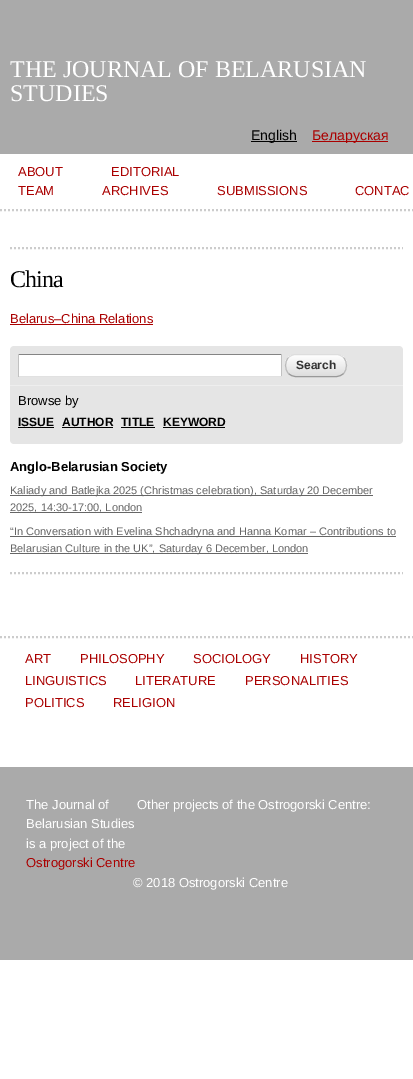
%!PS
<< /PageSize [413 1079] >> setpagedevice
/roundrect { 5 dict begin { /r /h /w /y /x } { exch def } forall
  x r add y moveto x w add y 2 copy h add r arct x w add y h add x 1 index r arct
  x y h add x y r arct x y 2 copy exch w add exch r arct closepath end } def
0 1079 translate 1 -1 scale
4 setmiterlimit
1 setgray
0 0 413 1079 rectfill
0.667 setgray
0 0 413 154 rectfill
/LiberationSerif-Regular [24 0 0 -24 0 0] selectfont
1 setgray
10 77 moveto (THE JOURNAL OF BELARUSIAN) show
10 101 moveto (STUDIES) show
0 setgray
251 141 46 1 rectfill
/LiberationSans-Regular [14 0 0 -14 0 0] selectfont
251 140 moveto (English) show
0.667 0 0 setrgbcolor
312 141 76 1 rectfill
312 140 moveto (Беларуская) show
0.8 setgray
2 setlinewidth
[2 2] 0 setdash
newpath 0 210 moveto 413 210 lineto stroke
/LiberationSans-Regular [13 0 0 -13 0 0] selectfont
0.667 0 0 setrgbcolor
18 176 moveto (ABOUT) show
111 176 moveto (EDITORIAL) show
18 195 moveto (TEAM) show
102 195 moveto (ARCHIVES) show
217 195 moveto (SUBMISSIONS) show
355 195 moveto (CONTAC) show
0.8 setgray
newpath 0 637 moveto 413 637 lineto stroke
newpath 10 248 moveto 403 248 lineto stroke
/LiberationSerif-Regular [24 0 0 -24 0 0] selectfont
0 setgray
10 287 moveto -1 0 (China) ashow
/LiberationSans-Regular [13 0 0 -13 0 0] selectfont
0.667 0 0 setrgbcolor
10 323 moveto (Belarus–China Relations) show
10 324 143 1 rectfill
0.898 setgray
newpath 14 346 moveto 399 346 lineto 401 346 403 348 403 350 curveto 403 385 lineto 10 385 lineto 10 350 lineto 10 348 12 346 14 346 curveto closepath fill
1 setgray
19 355 262 21 rectfill
0.518 setgray
18 354 264 1 rectfill
0.757 setgray
281 354 1 23 rectfill
0.882 setgray
18 376 264 1 rectfill
0.757 setgray
18 354 1 23 rectfill
gsave
285 354 62 23 11 roundrect clip newpath
gsave newpath 285 355 moveto 347 355 lineto 347 376 lineto 285 376 lineto closepath clip newpath
<< /ShadingType 2 /ColorSpace /DeviceRGB /Coords [286 355 286 376] /Extend [true true] /Function << /FunctionType 2 /Domain [0 1] /C0 [1 1 1] /C1 [0.867 0.867 0.867] /N 1 >> >> shfill grestore
grestore
0.867 setgray
1 setlinewidth
[] 0 setdash
newpath 288.5 357.5 moveto 290.5 355.5 293 354.5 296 354.5 curveto 336 354.5 lineto 339 354.5 341.5 355.5 343.5 357.5 curveto stroke
0.733 setgray
newpath 343.5 357.5 moveto 347.5 361.5 347.5 369.5 343.5 373.5 curveto stroke
0.6 setgray
newpath 343.5 373.5 moveto 341.5 375.5 339 376.5 336 376.5 curveto 296 376.5 lineto 293 376.5 290.5 375.5 288.5 373.5 curveto stroke
0.733 setgray
newpath 288.5 373.5 moveto 284.5 369.5 284.5 361.5 288.5 357.5 curveto stroke
/LiberationSans-Bold [12 0 0 -12 0 0] selectfont
0.2 setgray
296 369 moveto (Search) show
0.898 setgray
newpath 10 385 moveto 403 385 lineto 403 440 lineto 403 442 401 444 399 444 curveto 14 444 lineto 12 444 10 442 10 440 curveto closepath fill
0.933 setgray
10 385 393 1 rectfill
/LiberationSans-Regular [13 0 0 -13 0 0] selectfont
0 setgray
18 405 moveto (Browse by) show
/LiberationSans-Bold [12 0 0 -12 0 0] selectfont
18 426 moveto (ISSUE) show
18 427 36 1 rectfill
62 426 moveto (AUTHOR) show
62 427 51 1 rectfill
121 426 moveto (TITLE) show
121 427 34 1 rectfill
163 426 moveto (KEYWORD) show
163 427 62 1 rectfill
0.8 setgray
2 setlinewidth
[2 2] 0 setdash
newpath 10 573 moveto 403 573 lineto stroke
/LiberationSans-Bold [13 0 0 -13 0 0] selectfont
0 setgray
10 471 moveto (Anglo-Belarusian Society) show
0.4 setgray
10 495 363 1 rectfill
/LiberationSans-Regular [11 0 0 -11 0 0] selectfont
10 494 moveto (Kaliady and Batlejka 2025 \(Christmas celebration\), Saturday 20 December) show
10 512 132 1 rectfill
10 511 moveto (2025, 14:30-17:00, London) show
10 536 386 1 rectfill
10 535 moveto (“In Conversation with Evelina Shchadryna and Hanna Komar – Contributions to) show
10 553 298 1 rectfill
10 552 moveto (Belarusian Culture in the UK”, Saturday 6 December, London) show
0.667 setgray
0 767 413 193 rectfill
/LiberationSans-Regular [13 0 0 -13 0 0] selectfont
0.667 0 0 setrgbcolor
25 663 moveto (ART) show
80 663 moveto (PHILOSOPHY) show
193 663 moveto (SOCIOLOGY) show
300 663 moveto (HISTORY) show
25 685 moveto (LINGUISTICS) show
135 685 moveto (LITERATURE) show
245 685 moveto (PERSONALITIES) show
25 707 moveto (POLITICS) show
113 707 moveto (RELIGION) show
1 setgray
26 809 moveto (The Journal of) show
26 828 moveto (Belarusian Studies) show
26 848 moveto (is a project of the) show
0.667 0 0 setrgbcolor
26 867 moveto (Ostrogorski Centre) show
1 setgray
137 809 moveto (Other projects of the Ostrogorski Centre:) show
133 887 moveto (© 2018 Ostrogorski Centre) show
showpage
